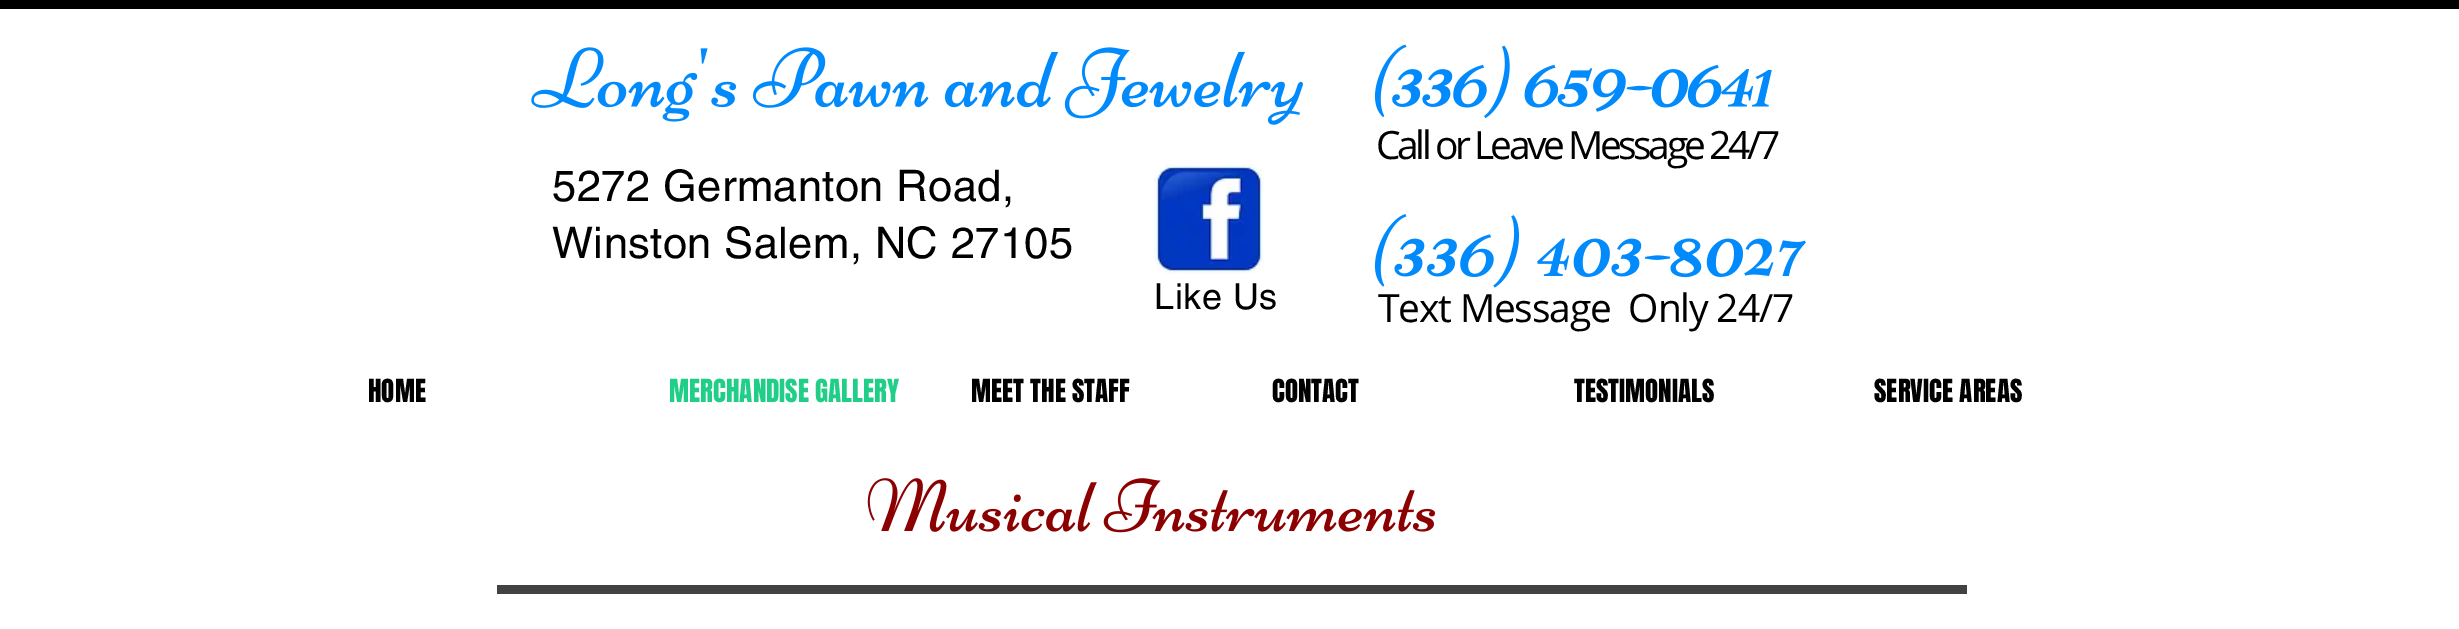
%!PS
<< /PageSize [2459 629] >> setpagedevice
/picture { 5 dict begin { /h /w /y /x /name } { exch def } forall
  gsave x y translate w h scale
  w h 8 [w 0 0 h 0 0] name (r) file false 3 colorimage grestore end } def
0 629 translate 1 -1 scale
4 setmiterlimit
1 setgray
0 0 2459 629 rectfill
0 setgray
0 0 2459 9 rectfill
(img1.rgb) 531 47 772 78 picture
(img2.rgb) 1374 44 398 75 picture
/OpenSans-Regular [39 0 0 -39 0 0] selectfont
1376 159 moveto -3.5 0 (Call or Leave Message 24/7) ashow
/helvetica-Regular [43.5 0 0 -43.5 0 0] selectfont
552 201 moveto 0.4 0 (5272 Germanton Road,) ashow
552 258 moveto 0.4 0 (Winston Salem, NC 27105) ashow
(img3.rgb) 1154 164 110 110 picture
/helvetica-Regular [36 0 0 -36 0 0] selectfont
1154 309 moveto 0.5 0 (Like Us) ashow
(img4.rgb) 1374 214 432 74 picture
/OpenSans-Regular [39 0 0 -39 0 0] selectfont
1378 322 moveto -1.2 0 (Text Message  Only 24/7) ashow
/Anton-Regular [27 0 0 -27 0 0] selectfont
368 402 moveto (HOME) show
0.125 0.808 0.533 setrgbcolor
669 402 moveto (MERCHANDISE GALLERY) show
0 setgray
971 402 moveto (MEET THE STAFF) show
1272 402 moveto (CONTACT) show
1574 402 moveto (TESTIMONIALS) show
1874 402 moveto (SERVICE AREAS) show
(img5.rgb) 867 478 568 55 picture
0.259 setgray
497 585 1470 9 rectfill
showpage
